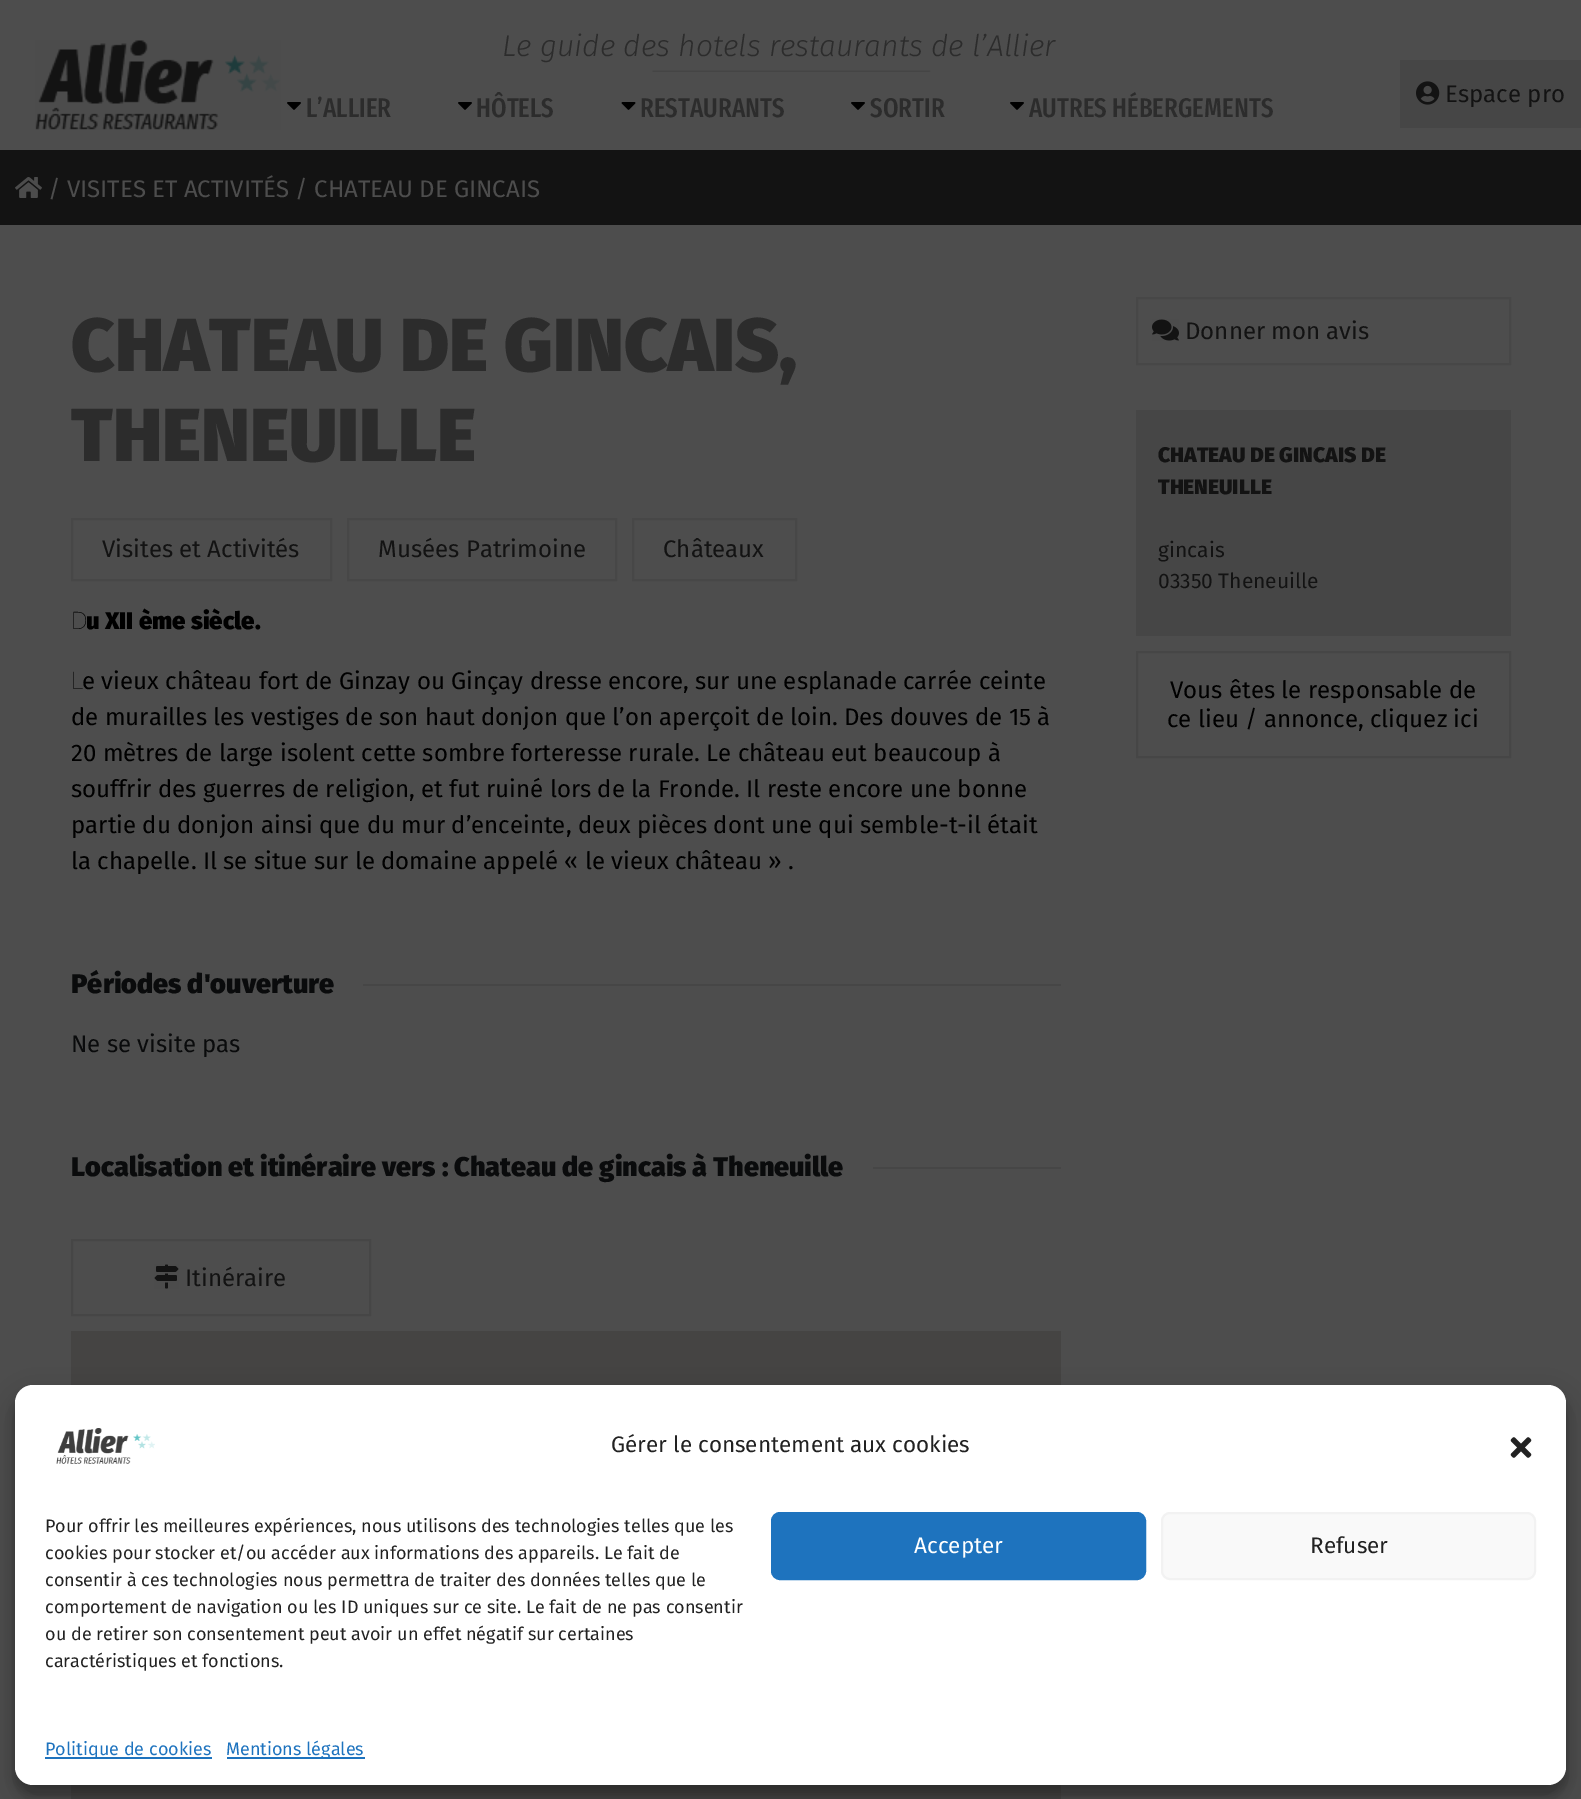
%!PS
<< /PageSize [1581 1799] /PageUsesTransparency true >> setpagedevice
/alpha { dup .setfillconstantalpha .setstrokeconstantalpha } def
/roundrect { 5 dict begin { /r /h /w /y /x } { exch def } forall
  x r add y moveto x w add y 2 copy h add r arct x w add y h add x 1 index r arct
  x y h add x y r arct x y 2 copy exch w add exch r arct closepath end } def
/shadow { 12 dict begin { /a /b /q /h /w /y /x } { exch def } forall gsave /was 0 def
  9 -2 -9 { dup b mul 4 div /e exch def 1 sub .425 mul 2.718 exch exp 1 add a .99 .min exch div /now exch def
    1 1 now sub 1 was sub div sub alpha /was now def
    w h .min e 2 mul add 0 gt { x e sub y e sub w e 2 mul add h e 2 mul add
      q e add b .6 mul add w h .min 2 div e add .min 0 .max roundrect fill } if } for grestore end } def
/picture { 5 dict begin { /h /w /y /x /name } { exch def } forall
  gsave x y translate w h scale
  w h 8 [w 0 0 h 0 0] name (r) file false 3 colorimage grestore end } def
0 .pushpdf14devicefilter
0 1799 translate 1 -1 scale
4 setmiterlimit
0.302 setgray
0 0 1581 1799 rectfill
(img1.rgb) 35 40 246 90 picture
(img2.rgb) 652 70 279 2 picture
/FiraSans-LightItalic [30 0 0 -30 0 0] selectfont
0.173 setgray
502 56 moveto (Le guide des hotels restaurants de l’Allier) show
0.275 setgray
1400 60 181 68 rectfill
(img3.rgb) 1416 81 24 24 picture
/FiraSans-Regular [24 0 0 -24 0 0] selectfont
0.075 setgray
1445 102 moveto (Espace pro) show
(img4.rgb) 287 102 14 8 picture
/FiraSansExtraCondensed-Medium [27 0 0 -27 0 0] selectfont
0.173 setgray
306 117 moveto (L’ALLIER) show
(img4.rgb) 458 102 14 8 picture
476 117 moveto (HÔTELS) show
(img5.rgb) 621 102 15 8 picture
640 117 moveto (RESTAURANTS) show
(img4.rgb) 851 102 14 8 picture
870 117 moveto (SORTIR) show
(img4.rgb) 1010 102 14 8 picture
1029 117 moveto (AUTRES HÉBERGEMENTS) show
0.075 setgray
0 150 1581 75 rectfill
(img6.rgb) 15 177 27 21 picture
/FiraSans-Regular [24 0 0 -24 0 0] selectfont
0.302 setgray
48 197 moveto (/ VISITES ET ACTIVITÉS / CHATEAU DE GINCAIS) show
/FiraSans-Black [75 0 0 -75 0 0] selectfont
0.173 setgray
71 371 moveto (CHATEAU DE GINCAIS,) show
71 461 moveto (THENEUILLE) show
0.278 setgray
2 setlinewidth
72 519 259 61 rectstroke
/FiraSans-Regular [24 0 0 -24 0 0] selectfont
0.075 setgray
102 557 moveto (Visites et Activités) show
0.278 setgray
348 519 268 61 rectstroke
0.075 setgray
378 557 moveto (Musées Patrimoine) show
0.278 setgray
633 519 163 61 rectstroke
0.075 setgray
663 557 moveto (Châteaux) show
0.278 setgray
1137 298 373 66 rectstroke
(img7.rgb) 1152 319 27 22 picture
0.075 setgray
1185 339 moveto (Donner mon avis) show
0.275 setgray
1136 410 375 226 rectfill
/FiraSans-Black [21 0 0 -21 0 0] selectfont
0.075 setgray
1158 462 moveto (CHATEAU DE GINCAIS DE) show
1158 494 moveto (THENEUILLE) show
/FiraSans-Regular [21 0 0 -21 0 0] selectfont
1158 557 moveto (gincais) show
1158 588 moveto (03350 Theneuille) show
0.275 setgray
1137 652 373 105 rectstroke
/FiraSans-Regular [24 0 0 -24 0 0] selectfont
0 setgray
1170 698 moveto (Vous êtes le responsable de) show
1167 727 moveto (ce lieu / annonce, cliquez ici) show
/NotoSans-Thin [24 0 0 -24 0 0] selectfont
71 629 moveto (D) show
/FiraSans-Black [24 0 0 -24 0 0] selectfont
86 629 moveto (u XII ème siècle.) show
/NotoSans-Thin [24 0 0 -24 0 0] selectfont
71 689 moveto (L) show
/FiraSans-Regular [24 0 0 -24 0 0] selectfont
82 689 moveto (e vieux château fort de Ginzay ou Ginçay dresse encore, sur une esplanade carrée ceinte) show
71 725 moveto (de murailles les vestiges de son haut donjon que l’on aperçoit de loin. Des douves de 15 à) show
71 761 moveto (20 mètres de large isolent cette sombre forteresse rurale. Le château eut beaucoup à) show
71 797 moveto (souffrir des guerres de religion, et fut ruiné lors de la Fronde. Il reste encore une bonne) show
71 833 moveto (partie du donjon ainsi que du mur d’enceinte, deux pièces dont une qui semble-t-il était) show
71 869 moveto (la chapelle. Il se situe sur le domaine appelé « le vieux château » .) show
0.275 setgray
363 984 698 2 rectfill
/FiraSans-Black [27 0 0 -27 0 0] selectfont
0.039 0.043 0.047 setrgbcolor
71 993 moveto (Périodes d'ouverture) show
/FiraSans-Regular [24 0 0 -24 0 0] selectfont
71 1052 moveto (Ne se visite pas) show
0.275 setgray
873 1167 188 2 rectfill
/FiraSans-Black [27 0 0 -27 0 0] selectfont
0.039 0.043 0.047 setrgbcolor
71 1176 moveto (Localisation et itinéraire vers : Chateau de gincais à Theneuille) show
0.275 setgray
72 1240 298 75 rectstroke
(img8.rgb) 154 1264 25 25 picture
/FiraSans-Regular [24 0 0 -24 0 0] selectfont
0.075 setgray
185 1286 moveto (Itinéraire) show
0.271 0.267 0.263 setrgbcolor
71 1331 990 468 rectfill
0 setgray
15 1394 1551 400 18 4.5 0.23 shadow
15 1400 1551 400 18 15 0.19 shadow
1 setgray
15 1385 1551 400 18 roundrect fill
(img9.rgb) 56 1428 99 36 picture
/FiraSans-Regular [22.5 0 0 -22.5 0 0] selectfont
0.133 setgray
611 1452 moveto (Gérer le consentement aux cookies) show
(img10.rgb) 1510 1437 22 21 picture
/FiraSans-Regular [18 0 0 -18 0 0] selectfont
45 1532 moveto (Pour offrir les meilleures expériences, nous utilisons des technologies telles que les) show
45 1559 moveto (cookies pour stocker et/ou accéder aux informations des appareils. Le fait de) show
45 1586 moveto (consentir à ces technologies nous permettra de traiter des données telles que le) show
45 1613 moveto (comportement de navigation ou les ID uniques sur ce site. Le fait de ne pas consentir) show
45 1640 moveto (ou de retirer son consentement peut avoir un effet négatif sur certaines) show
45 1667 moveto (caractéristiques et fonctions.) show
0.118 0.451 0.745 setrgbcolor
772 1513 373 66 8 roundrect gsave fill grestore
stroke
/FiraSans-Regular [22.5 0 0 -22.5 0 0] selectfont
1 setgray
914 1553 moveto (Accepter) show
0.976 setgray
1162 1513 373 66 8 roundrect gsave fill grestore
0.949 setgray
stroke
0.133 setgray
1310 1553 moveto (Refuser) show
0.118 0.451 0.745 setrgbcolor
45 1757 167 2 rectfill
/FiraSans-Regular [18 0 0 -18 0 0] selectfont
45 1755 moveto (Politique de cookies) show
227 1757 138 2 rectfill
226 1755 moveto (Mentions légales) show
.poppdf14devicefilter showpage
